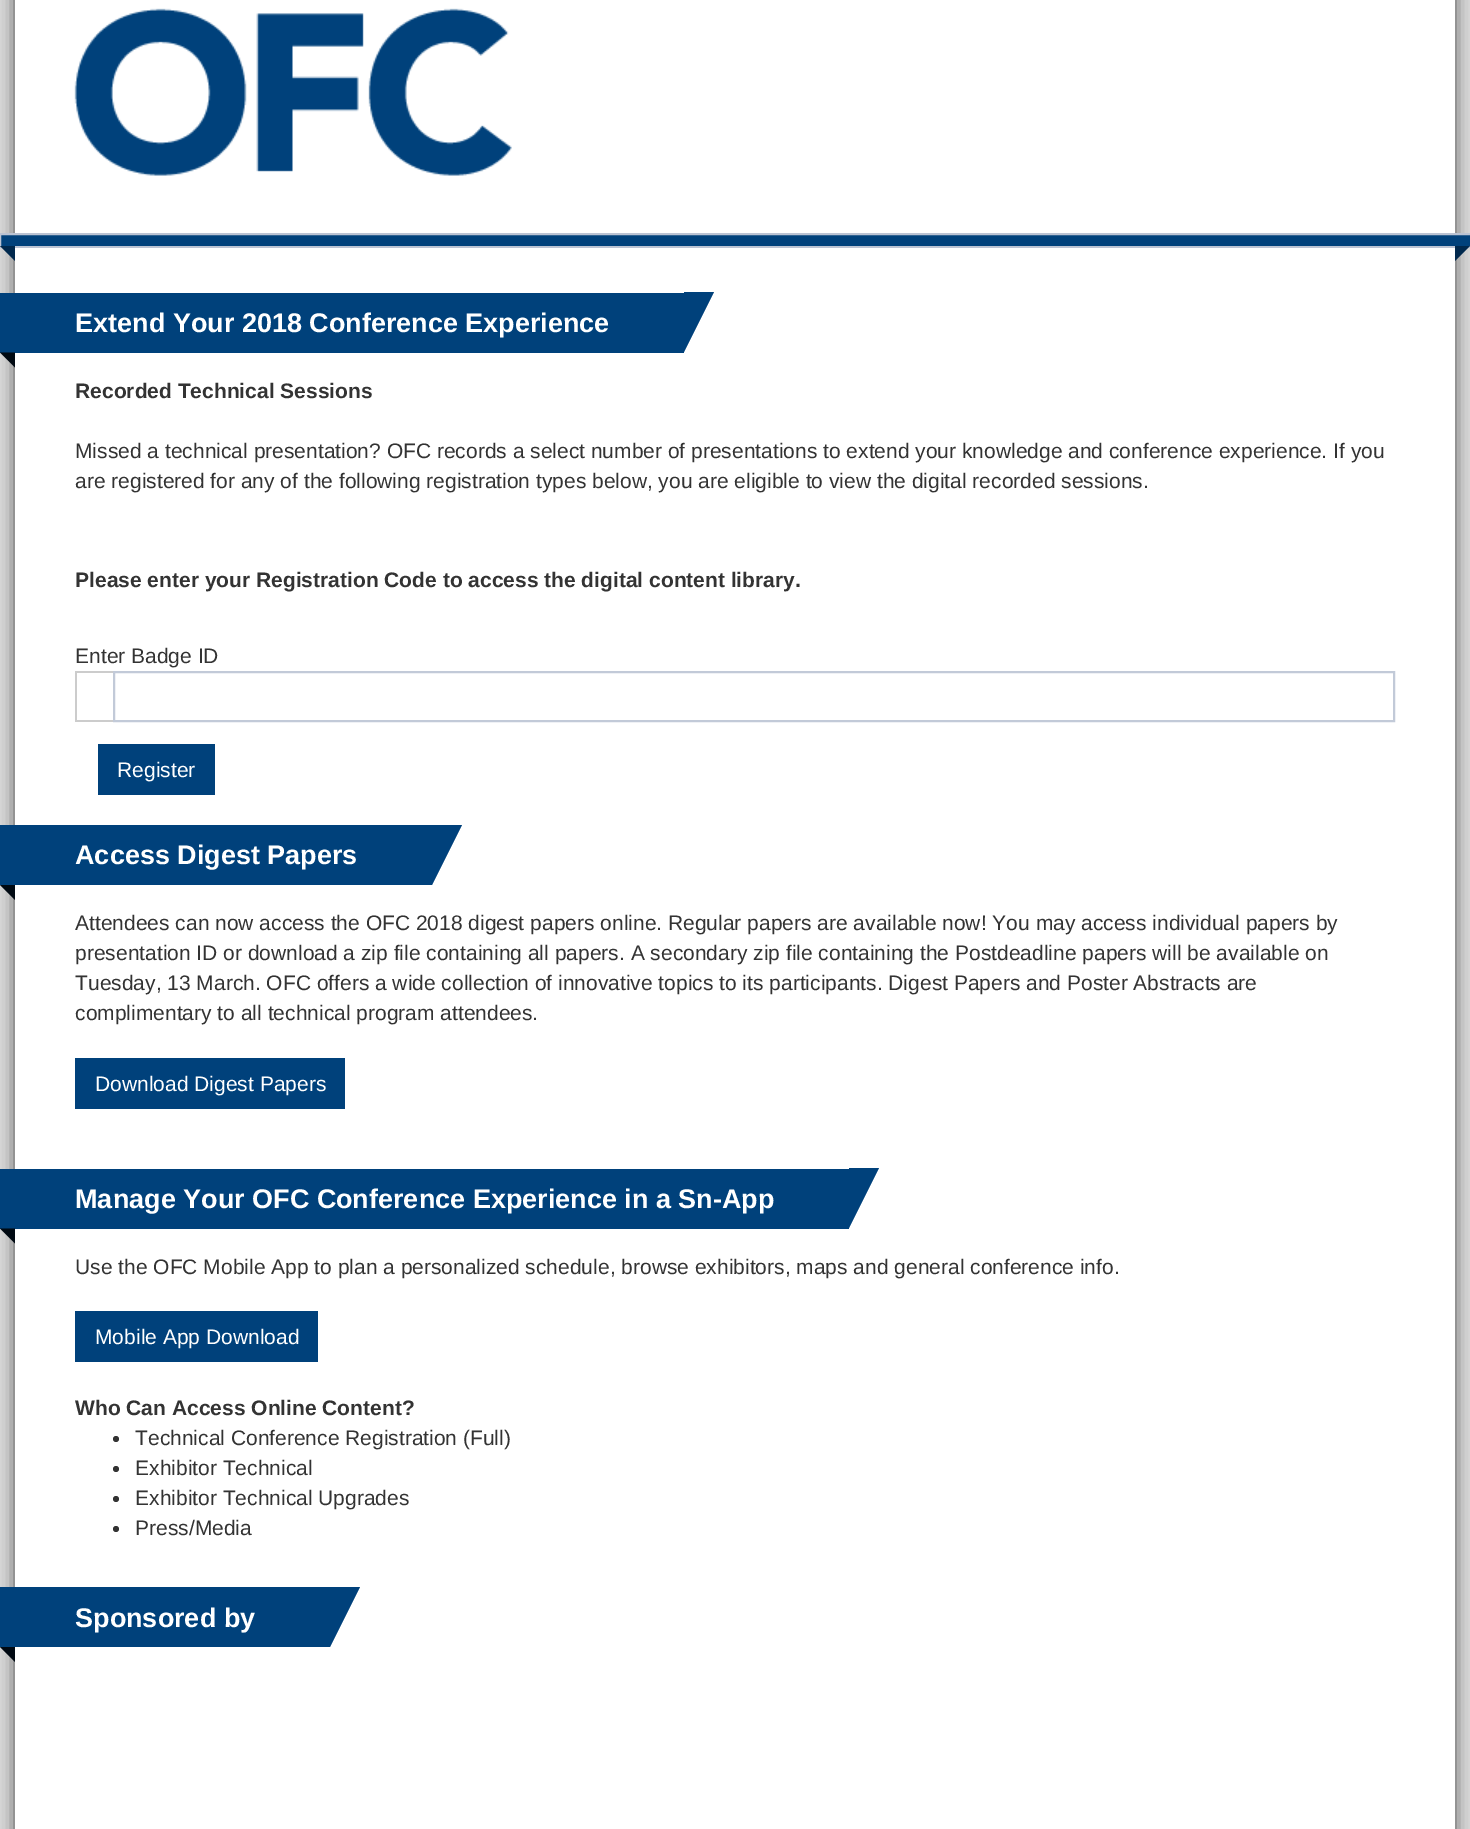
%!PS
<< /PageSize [1470 1829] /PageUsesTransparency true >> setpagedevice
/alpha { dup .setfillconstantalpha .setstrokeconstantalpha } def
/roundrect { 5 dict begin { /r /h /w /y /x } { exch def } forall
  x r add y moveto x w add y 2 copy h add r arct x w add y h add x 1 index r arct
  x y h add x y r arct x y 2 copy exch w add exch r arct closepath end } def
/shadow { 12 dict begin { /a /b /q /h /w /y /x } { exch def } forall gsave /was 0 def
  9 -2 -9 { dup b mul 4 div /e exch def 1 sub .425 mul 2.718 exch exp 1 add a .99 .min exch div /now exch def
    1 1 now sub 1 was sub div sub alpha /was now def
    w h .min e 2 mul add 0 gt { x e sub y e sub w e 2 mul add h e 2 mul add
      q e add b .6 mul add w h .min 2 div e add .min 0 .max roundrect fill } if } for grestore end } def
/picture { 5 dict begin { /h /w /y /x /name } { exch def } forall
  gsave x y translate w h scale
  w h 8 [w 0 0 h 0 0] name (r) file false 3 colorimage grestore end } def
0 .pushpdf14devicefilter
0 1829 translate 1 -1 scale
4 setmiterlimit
0.851 setgray
0 0 1470 1829 rectfill
0 setgray
15 -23 1440 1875 0 7.5 0.65 shadow
1 setgray
15 0 1440 233 rectfill
(img1.rgb) 74 8 438 168 picture
0 0.255 0.482 setrgbcolor
newpath 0 234 moveto 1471 234 lineto 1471 247 lineto 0 247 lineto closepath gsave fill grestore
0.733 0.765 0.827 setrgbcolor
2 setlinewidth
stroke
0 0.157 0.302 setrgbcolor
newpath 15 246 moveto 15 261 lineto 0 246 lineto closepath fill
newpath 1455 261 moveto 1455 246 lineto 1470 246 lineto closepath fill
1 setgray
15 248 1440 1581 rectfill
0 0.255 0.482 setrgbcolor
0 293 684 60 rectfill
/LiberationSans-Bold [27 0 0 -27 0 0] selectfont
1 setgray
75 332 moveto (Extend Your 2018 Conference Experience) show
0 0.255 0.482 setrgbcolor
newpath 684 352 moveto 684 292 lineto 714 292 lineto closepath fill
0 0.035 0.071 setrgbcolor
newpath 15 352.5 moveto 15 367.5 lineto 0 352.5 lineto closepath fill
/LiberationSans-Bold [21 0 0 -21 0 0] selectfont
0.2 setgray
75 398 moveto (Recorded Technical Sessions) show
/LiberationSans-Regular [21 0 0 -21 0 0] selectfont
75 458 moveto (Missed a technical presentation? OFC records a select number of presentations to extend your knowledge and conference experience. If you) show
75 488 moveto (are registered for any of the following registration types below, you are eligible to view the digital recorded sessions.) show
/LiberationSans-Bold [21 0 0 -21 0 0] selectfont
75 587 moveto (Please enter your Registration Code to access the digital content library.) show
/LiberationSans-Regular [21 0 0 -21 0 0] selectfont
75 663 moveto (Enter Badge ID) show
0.8 setgray
75 671 38 2 rectfill
75 720 38 2 rectfill
75 671 2 51 rectfill
0.761 0.792 0.847 setrgbcolor
114 672 1280 49 rectstroke
0 0.255 0.482 setrgbcolor
98 744 117 51 rectfill
1 setgray
117 777 moveto (Register) show
0 0.255 0.482 setrgbcolor
0 825 432 60 rectfill
/LiberationSans-Bold [27 0 0 -27 0 0] selectfont
1 setgray
75 864 moveto (Access Digest Papers) show
0 0.255 0.482 setrgbcolor
newpath 432 885 moveto 432 825 lineto 462 825 lineto closepath fill
0 0.035 0.071 setrgbcolor
newpath 15 885 moveto 15 900 lineto 0 885 lineto closepath fill
/LiberationSans-Regular [21 0 0 -21 0 0] selectfont
0.2 setgray
75 930 moveto (Attendees can now access the OFC 2018 digest papers online. Regular papers are available now! You may access individual papers by) show
75 960 moveto (presentation ID or download a zip file containing all papers. A secondary zip file containing the Postdeadline papers will be available on) show
75 990 moveto (Tuesday, 13 March. OFC offers a wide collection of innovative topics to its participants. Digest Papers and Poster Abstracts are) show
75 1020 moveto (complimentary to all technical program attendees.) show
0 0.255 0.482 setrgbcolor
75 1058 270 51 rectfill
1 setgray
95 1091 moveto (Download Digest Papers) show
0 0.255 0.482 setrgbcolor
0 1169 849 60 rectfill
/LiberationSans-Bold [27 0 0 -27 0 0] selectfont
1 setgray
75 1208 moveto (Manage Your OFC Conference Experience in a Sn-App) show
0 0.255 0.482 setrgbcolor
newpath 849 1228 moveto 849 1168 lineto 879 1168 lineto closepath fill
0 0.035 0.071 setrgbcolor
newpath 15 1228.5 moveto 15 1243.5 lineto 0 1228.5 lineto closepath fill
/LiberationSans-Regular [21 0 0 -21 0 0] selectfont
0.2 setgray
75 1274 moveto (Use the OFC Mobile App to plan a personalized schedule, browse exhibitors, maps and general conference info.) show
0 0.255 0.482 setrgbcolor
75 1311 243 51 rectfill
1 setgray
95 1344 moveto (Mobile App Download) show
/LiberationSans-Bold [21 0 0 -21 0 0] selectfont
0.2 setgray
75 1415 moveto (Who Can Access Online Content?) show
newpath 116 1439 3 0 360 arc closepath fill
/LiberationSans-Regular [21 0 0 -21 0 0] selectfont
135 1445 moveto (Technical Conference Registration \(Full\)) show
newpath 116 1469 3 0 360 arc closepath fill
135 1475 moveto (Exhibitor Technical) show
newpath 116 1499 3 0 360 arc closepath fill
135 1505 moveto (Exhibitor Technical Upgrades) show
newpath 116 1529 3 0 360 arc closepath fill
135 1535 moveto (Press/Media) show
0 0.255 0.482 setrgbcolor
0 1587 330 60 rectfill
/LiberationSans-Bold [27 0 0 -27 0 0] selectfont
1 setgray
75 1627 moveto (Sponsored by) show
0 0.255 0.482 setrgbcolor
newpath 330 1647 moveto 330 1587 lineto 360 1587 lineto closepath fill
0 0.035 0.071 setrgbcolor
newpath 15 1647 moveto 15 1662 lineto 0 1647 lineto closepath fill
.poppdf14devicefilter showpage
